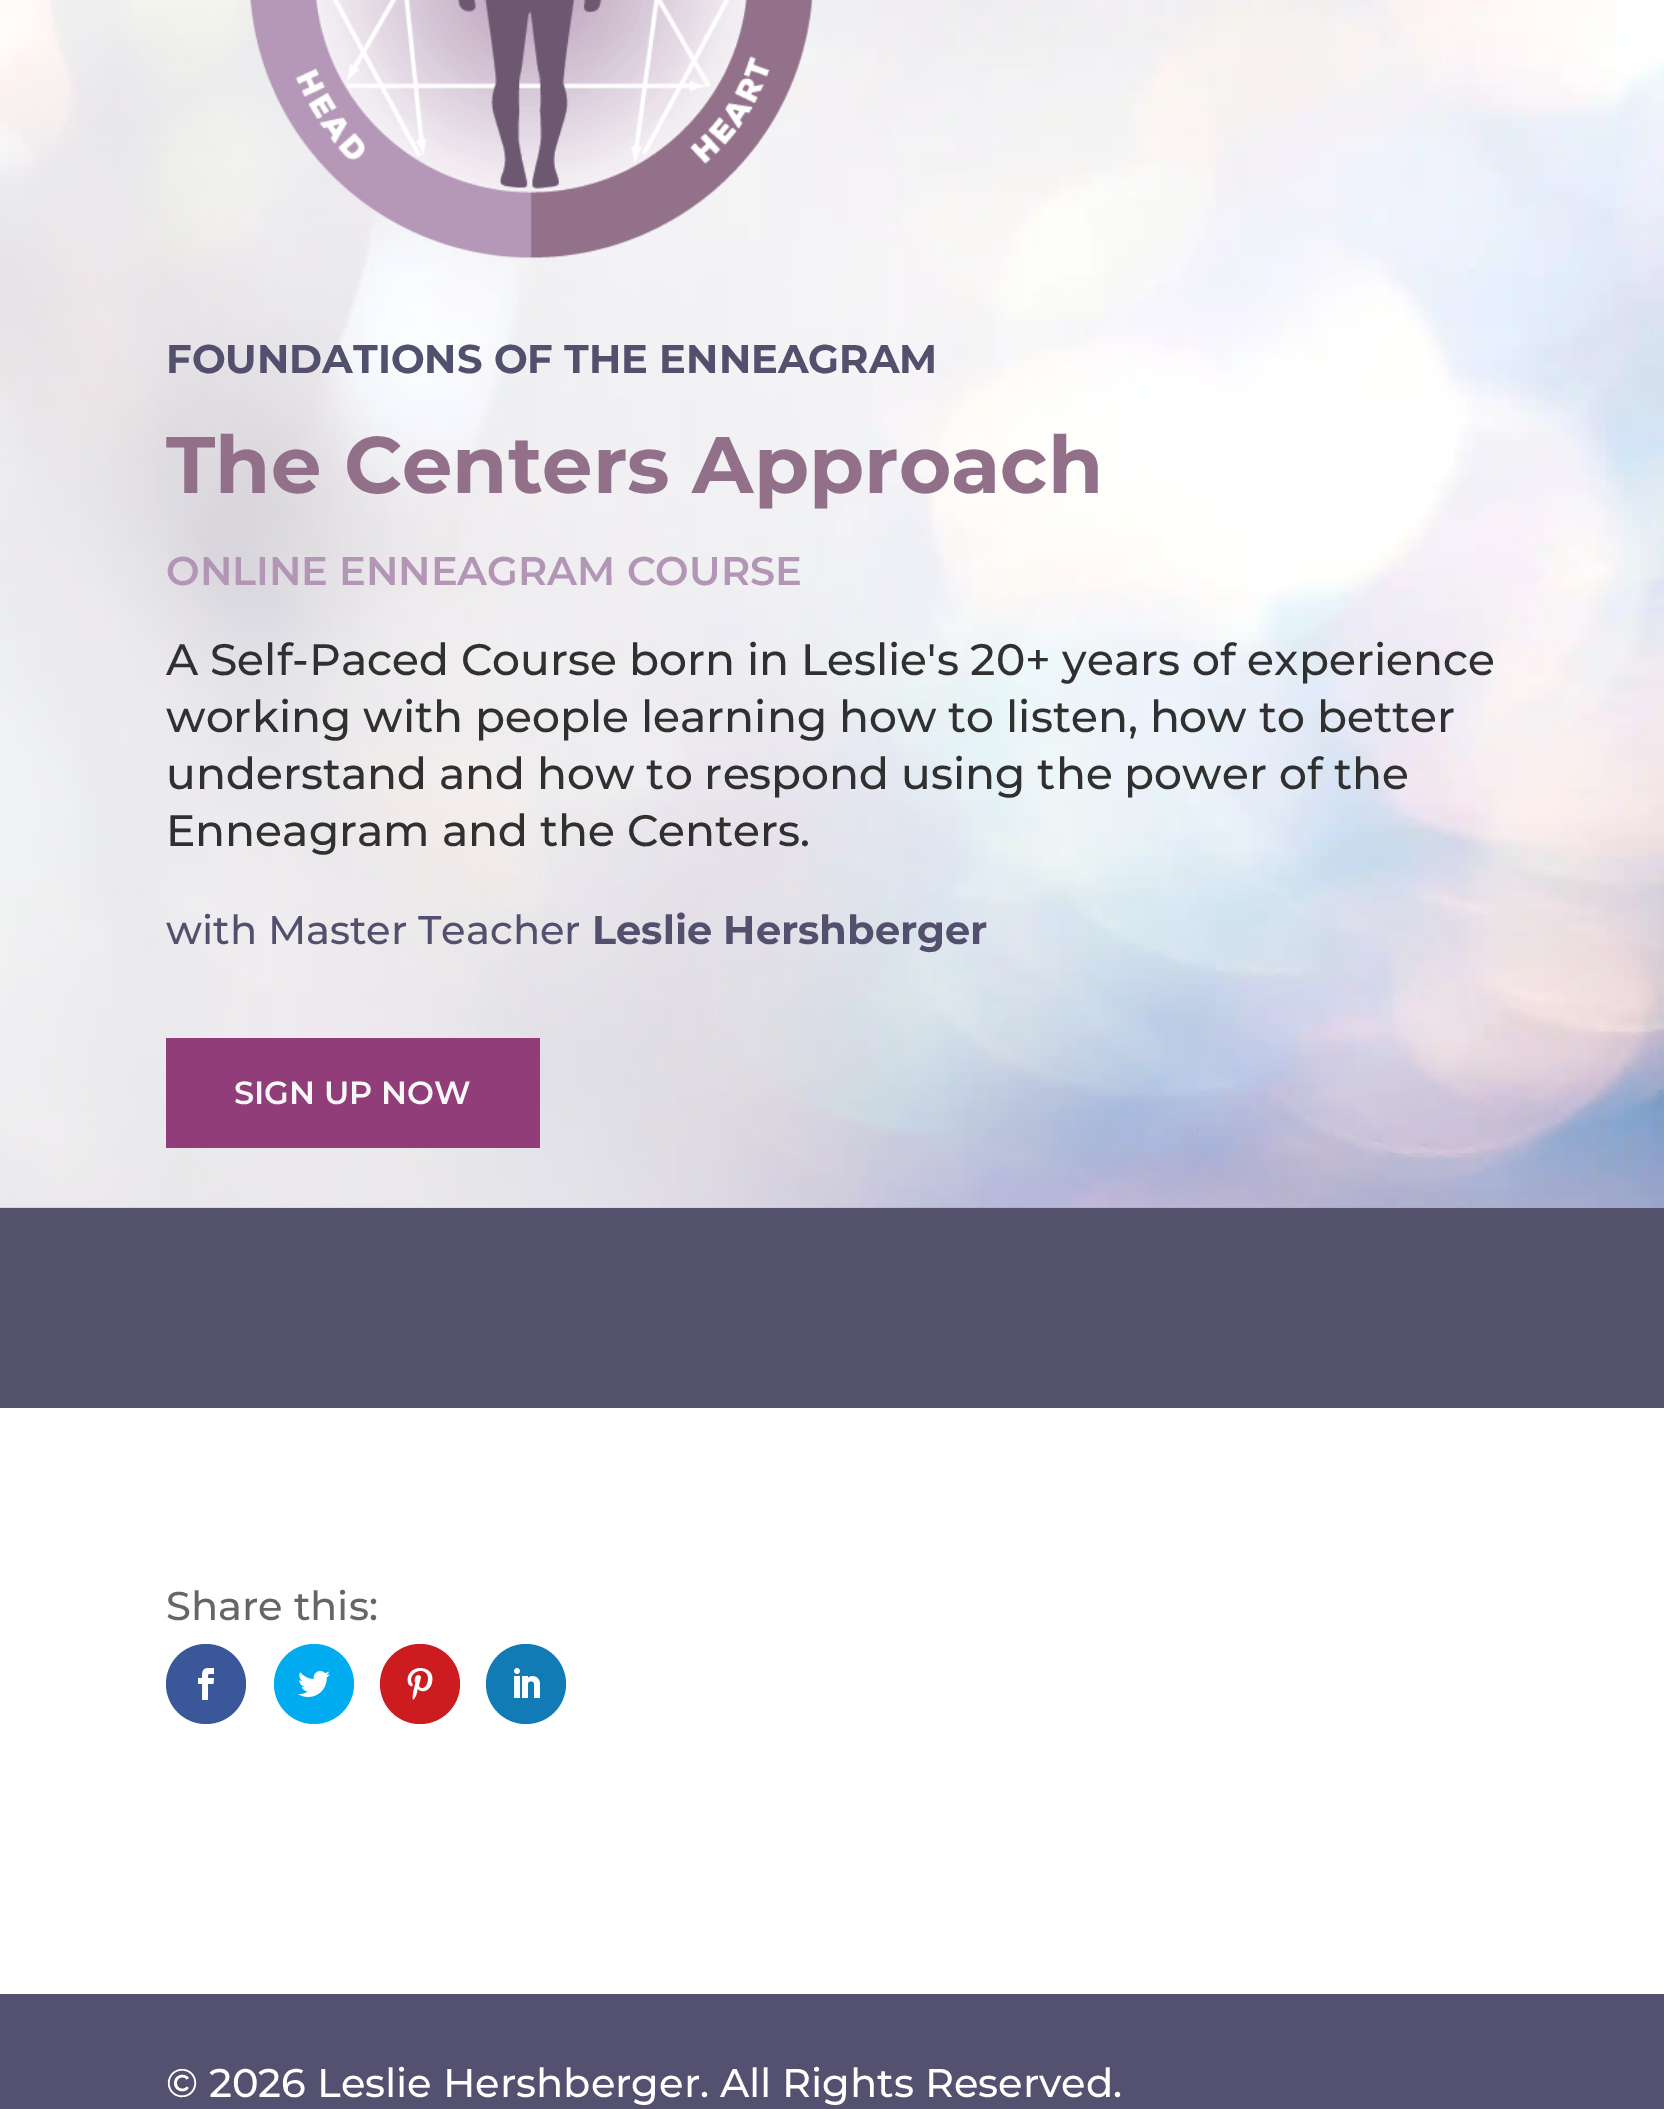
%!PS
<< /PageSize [1664 2109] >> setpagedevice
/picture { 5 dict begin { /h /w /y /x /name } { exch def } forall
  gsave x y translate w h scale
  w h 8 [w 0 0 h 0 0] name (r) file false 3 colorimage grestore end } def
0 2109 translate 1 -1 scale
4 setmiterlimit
1 setgray
0 0 1664 2109 rectfill
(img1.rgb) 0 0 1664 1208 picture
(img2.rgb) 250 0 563 258 picture
/Montserrat-Bold [40 0 0 -40 0 0] selectfont
0.325 0.314 0.431 setrgbcolor
166 373 moveto (FOUNDATIONS OF THE ENNEAGRAM) show
/Montserrat-Bold [80 0 0 -80 0 0] selectfont
0.573 0.439 0.537 setrgbcolor
166 493 moveto (The Centers Approach) show
/Montserrat-SemiBold [40 0 0 -40 0 0] selectfont
0.702 0.588 0.714 setrgbcolor
166 585 moveto (ONLINE ENNEAGRAM COURSE) show
/Montserrat-Medium [44 0 0 -44 0 0] selectfont
0.188 setgray
166 675 moveto (A Self-Paced Course born in Leslie's 20+ years of experience) show
166 732 moveto (working with people learning how to listen, how to better) show
166 789 moveto (understand and how to respond using the power of the) show
166 846 moveto (Enneagram and the Centers.) show
/Montserrat-Medium [40 0 0 -40 0 0] selectfont
0.325 0.314 0.431 setrgbcolor
166 944 moveto (with Master Teacher) show
/Montserrat-Bold [40 0 0 -40 0 0] selectfont
592 944 moveto (Leslie Hershberger) show
0.569 0.239 0.478 setrgbcolor
166 1038 374 110 rectfill
/Montserrat-SemiBold [32 0 0 -32 0 0] selectfont
0.969 setgray
234 1104 moveto (SIGN UP NOW) show
0.325 0.318 0.424 setrgbcolor
0 1208 1664 200 rectfill
/Montserrat-Medium [40 0 0 -40 0 0] selectfont
0.4 setgray
166 1620 moveto (Share this:) show
0.227 0.341 0.604 setrgbcolor
newpath 206 1684 40 0 360 arc closepath fill
(img3.rgb) 198 1668 17 32 picture
0 0.671 0.941 setrgbcolor
newpath 314 1684 40 0 360 arc closepath fill
(img4.rgb) 298 1671 32 26 picture
0.804 0.11 0.122 setrgbcolor
newpath 420 1684 40 0 360 arc closepath fill
(img5.rgb) 407 1668 26 32 picture
0.071 0.482 0.714 setrgbcolor
newpath 526 1684 40 0 360 arc closepath fill
(img6.rgb) 514 1668 26 30 picture
0.329 0.314 0.435 setrgbcolor
0 1994 1664 115 rectfill
1 setgray
166 2097 moveto (© 2026 Leslie Hershberger. All Rights Reserved.) show
showpage
